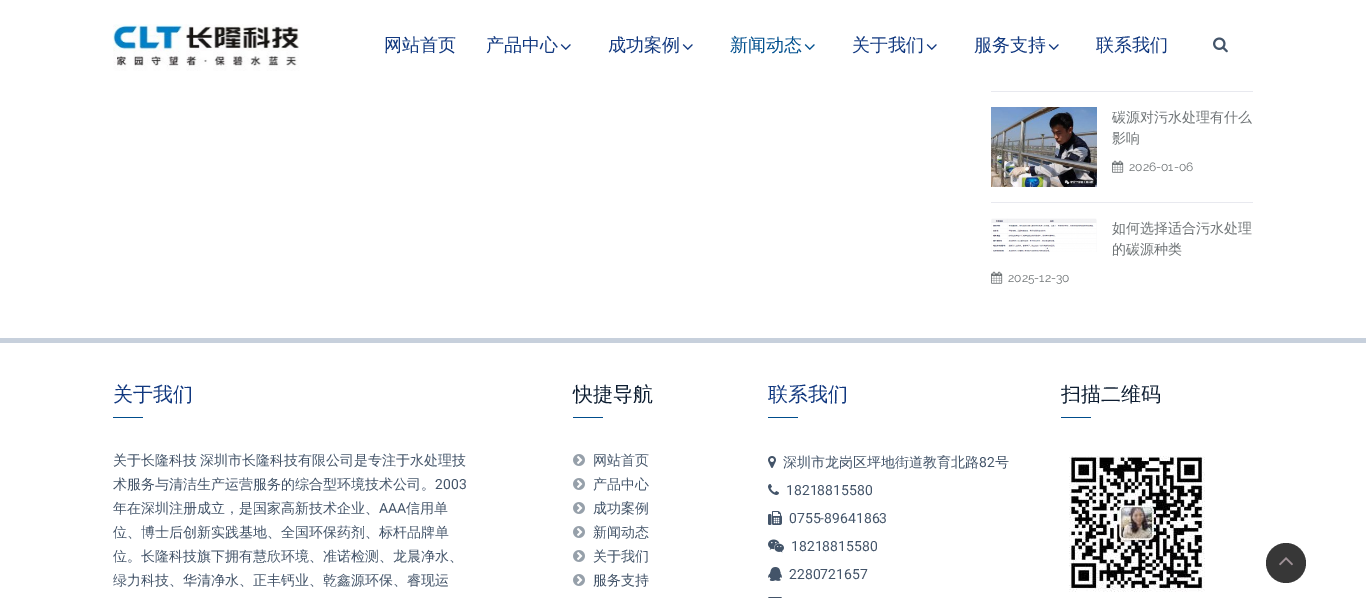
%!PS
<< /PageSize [1366 598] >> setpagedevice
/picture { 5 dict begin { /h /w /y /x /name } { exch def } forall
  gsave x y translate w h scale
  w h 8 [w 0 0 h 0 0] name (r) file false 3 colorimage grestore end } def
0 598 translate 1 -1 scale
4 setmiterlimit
1 setgray
0 0 1366 598 rectfill
(img1.rgb) 113 24 187 47 picture
/WenQuanYiZenHei-Medium [18 0 0 -18 0 0] selectfont
0.067 0.22 0.498 setrgbcolor
384 51 moveto (网站首页) show
486 51 moveto (产品中心) show
(img2.rgb) 560 44 11 6 picture
608 51 moveto (成功案例) show
(img2.rgb) 682 44 11 6 picture
0 0.31 0.557 setrgbcolor
730 51 moveto (新闻动态) show
(img3.rgb) 804 44 11 6 picture
0.067 0.22 0.498 setrgbcolor
852 51 moveto (关于我们) show
(img2.rgb) 926 44 11 6 picture
974 51 moveto (服务支持) show
(img2.rgb) 1048 44 11 6 picture
1096 51 moveto (联系我们) show
(img4.rgb) 1213 37 15 16 picture
0.91 0.914 0.937 setrgbcolor
991 91 262 1 rectfill
991 202 262 1 rectfill
(img5.rgb) 991 107 106 80 picture
/WenQuanYiZenHei-Medium [14 0 0 -14 0 0] selectfont
0.431 0.451 0.459 setrgbcolor
1112 122 moveto (碳源对污水处理有什么) show
1112 143 moveto (影响) show
(img6.rgb) 1112 160 12 13 picture
/Raleway-Regular [12 0 0 -12 0 0] selectfont
1129 171 moveto (2026-01-06) show
(img7.rgb) 991 218 106 34 picture
/WenQuanYiZenHei-Medium [14 0 0 -14 0 0] selectfont
1112 233 moveto (如何选择适合污水处理) show
1112 254 moveto (的碳源种类) show
(img6.rgb) 991 271 12 13 picture
/Raleway-Regular [12 0 0 -12 0 0] selectfont
1008 282 moveto (2025-12-30) show
0.78 0.816 0.863 setrgbcolor
0 338 1366 5 rectfill
/WenQuanYiZenHei-Medium [20 0 0 -20 0 0] selectfont
0.067 0.22 0.498 setrgbcolor
113 401 moveto (关于我们) show
0 0.302 0.549 setrgbcolor
113 417 30 1 rectfill
/WenQuanYiZenHei-Medium [14 0 0 -14 0 0] selectfont
0.263 0.329 0.412 setrgbcolor
113 465 moveto -1 0 32 (关于长隆科技 深圳市长隆科技有限公司是专注于水处理技) widthshow
113 489 moveto (术服务与清洁生产运营服务的综合型环境技术公司。) show
/Roboto-Regular [14 0 0 -14 0 0] selectfont
435 489 moveto (2003) show
/WenQuanYiZenHei-Medium [14 0 0 -14 0 0] selectfont
113 513 moveto (年在深圳注册成立，是国家高新技术企业、) show
/Roboto-Regular [14 0 0 -14 0 0] selectfont
379 513 moveto (AAA) show
/WenQuanYiZenHei-Medium [14 0 0 -14 0 0] selectfont
406 513 moveto (信用单) show
113 537 moveto (位、博士后创新实践基地、全国环保药剂、标杆品牌单) show
113 561 moveto (位。长隆科技旗下拥有慧欣环境、准诺检测、龙晨净水、) show
113 585 moveto (绿力科技、华清净水、正丰钙业、乾鑫源环保、睿现运) show
/WenQuanYiZenHei-Medium [20 0 0 -20 0 0] selectfont
0.051 0.114 0.192 setrgbcolor
573 401 moveto (快捷导航) show
0 0.302 0.549 setrgbcolor
573 417 30 1 rectfill
(img8.rgb) 573 454 12 12 picture
/WenQuanYiZenHei-Medium [14 0 0 -14 0 0] selectfont
0.263 0.329 0.412 setrgbcolor
593 465 moveto (网站首页) show
(img8.rgb) 573 478 12 12 picture
593 489 moveto (产品中心) show
(img8.rgb) 573 502 12 12 picture
593 513 moveto (成功案例) show
(img8.rgb) 573 526 12 12 picture
593 537 moveto (新闻动态) show
(img8.rgb) 573 550 12 12 picture
593 561 moveto (关于我们) show
(img8.rgb) 573 574 12 12 picture
593 585 moveto (服务支持) show
/WenQuanYiZenHei-Medium [20 0 0 -20 0 0] selectfont
0.067 0.22 0.498 setrgbcolor
768 401 moveto (联系我们) show
0 0.302 0.549 setrgbcolor
768 417 30 1 rectfill
(img9.rgb) 768 456 8 12 picture
/WenQuanYiZenHei-Medium [14 0 0 -14 0 0] selectfont
0.263 0.329 0.412 setrgbcolor
783 467 moveto (深圳市龙岗区坪地街道教育北路) show
/Roboto-Regular [14 0 0 -14 0 0] selectfont
979 467 moveto (82) show
/WenQuanYiZenHei-Medium [14 0 0 -14 0 0] selectfont
995 467 moveto (号) show
(img10.rgb) 768 484 11 11 picture
/Roboto-Regular [14 0 0 -14 0 0] selectfont
786 495 moveto (18218815580) show
(img11.rgb) 768 511 14 14 picture
789 523 moveto (0755-89641863) show
(img12.rgb) 768 539 16 14 picture
791 551 moveto (18218815580) show
(img13.rgb) 768 567 14 14 picture
789 579 moveto (2280721657) show
(img14.rgb) 768 597 14 1 picture
/WenQuanYiZenHei-Medium [20 0 0 -20 0 0] selectfont
0.051 0.114 0.192 setrgbcolor
1061 401 moveto (扫描二维码) show
0 0.302 0.549 setrgbcolor
1061 417 30 1 rectfill
(img15.rgb) 1069 456 136 136 picture
0.216 setgray
newpath 1286 563 20 0 360 arc closepath fill
(img16.rgb) 1279 557 14 9 picture
showpage
